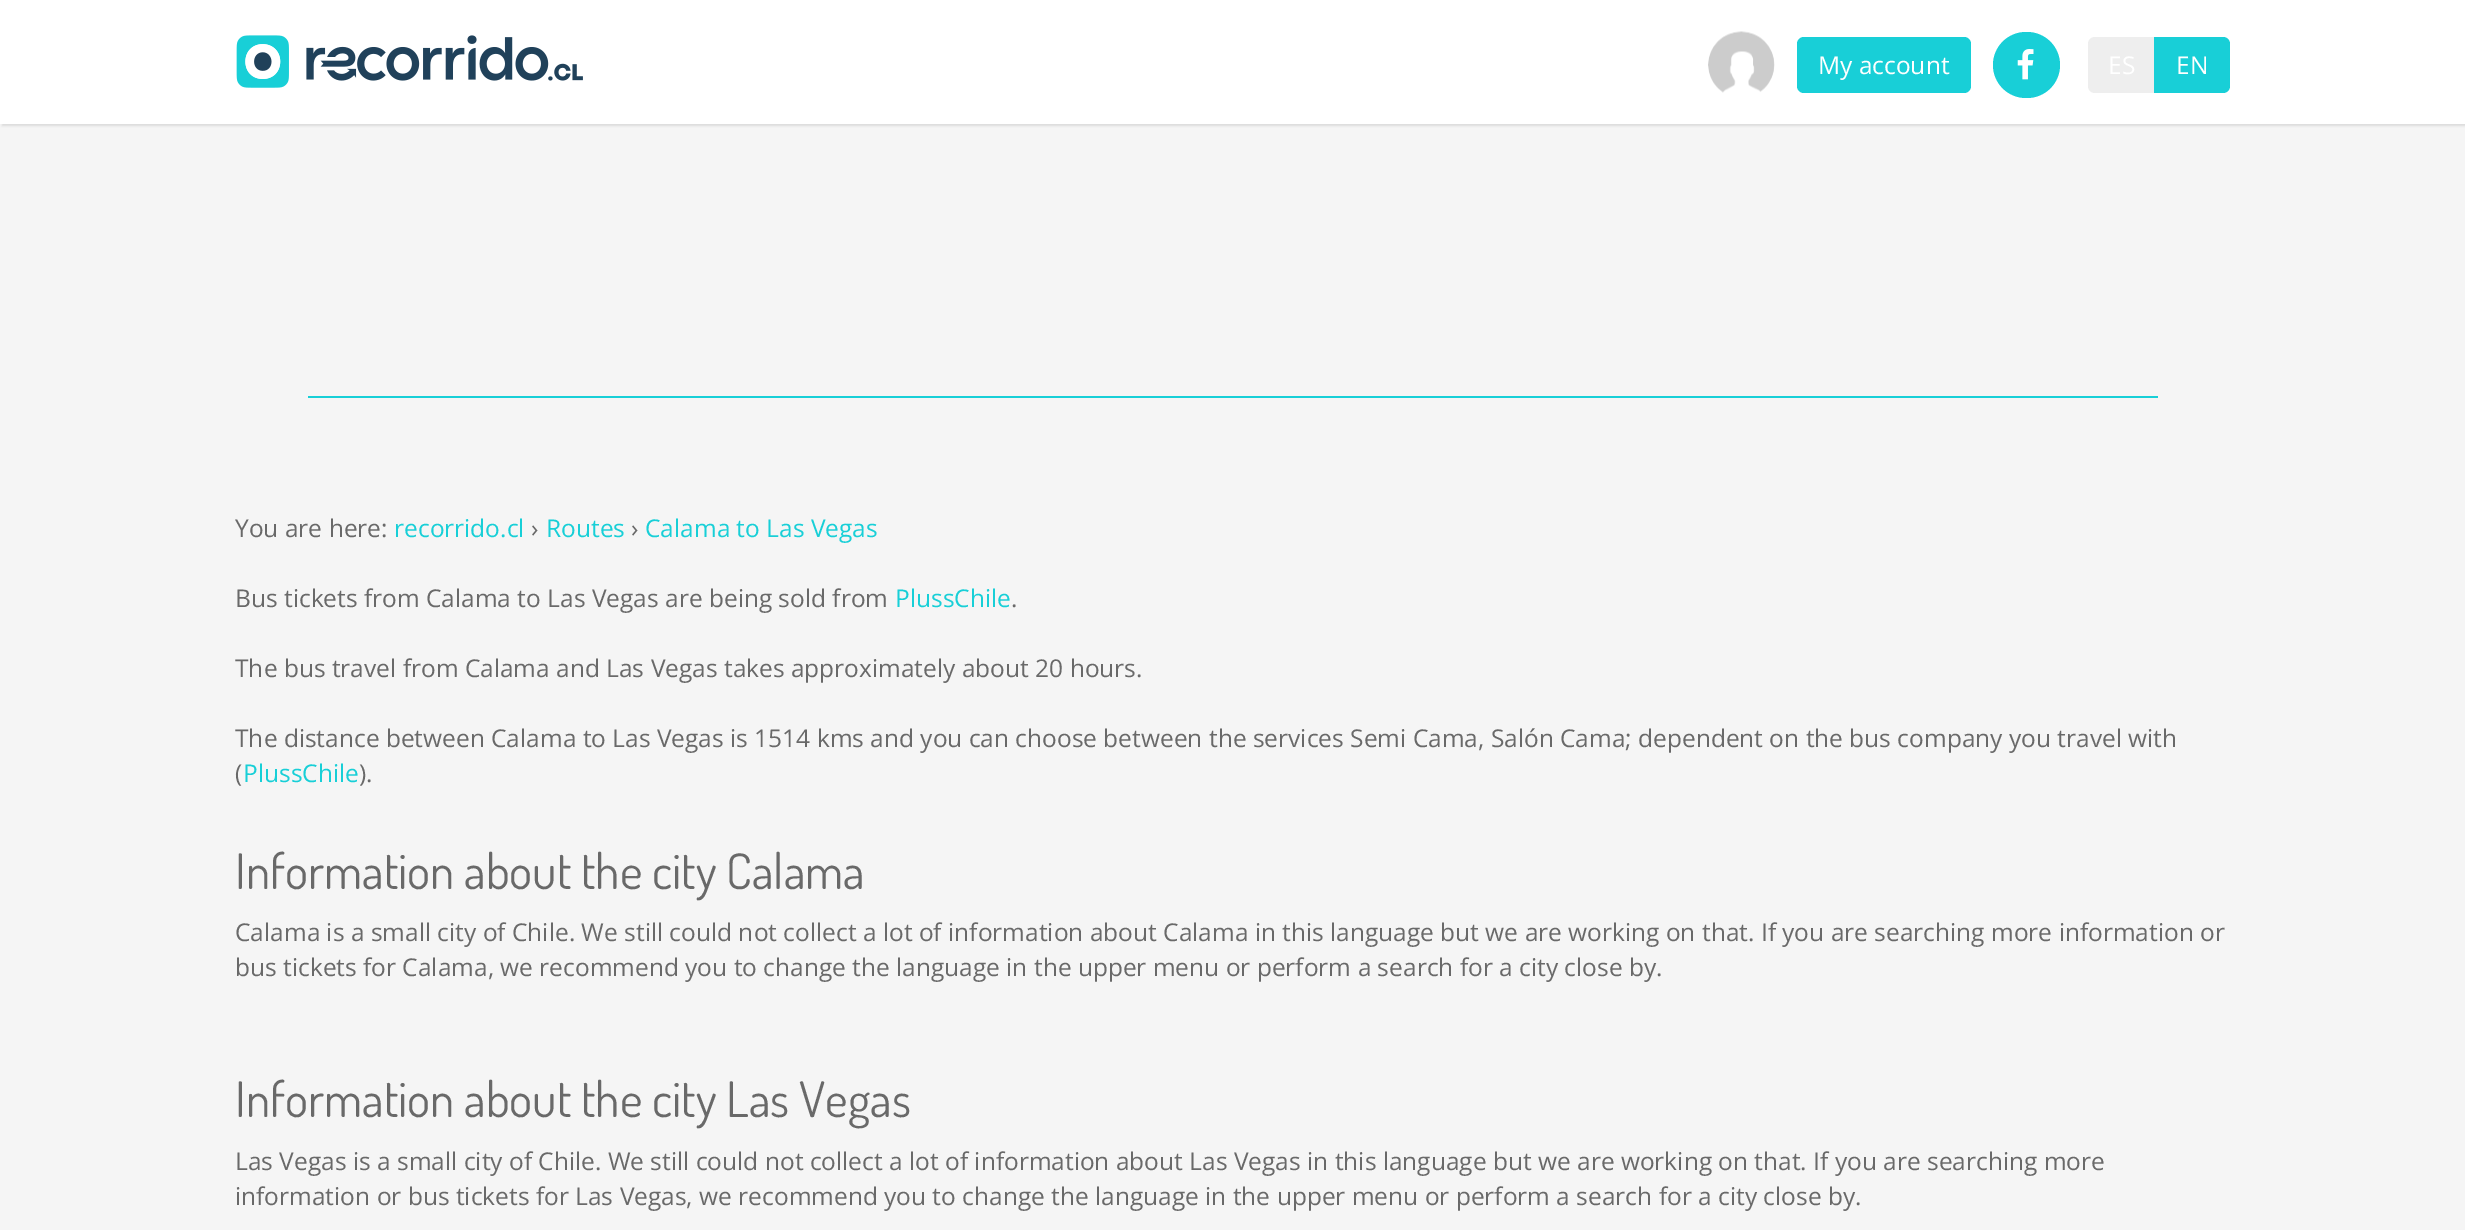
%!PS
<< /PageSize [2465 1230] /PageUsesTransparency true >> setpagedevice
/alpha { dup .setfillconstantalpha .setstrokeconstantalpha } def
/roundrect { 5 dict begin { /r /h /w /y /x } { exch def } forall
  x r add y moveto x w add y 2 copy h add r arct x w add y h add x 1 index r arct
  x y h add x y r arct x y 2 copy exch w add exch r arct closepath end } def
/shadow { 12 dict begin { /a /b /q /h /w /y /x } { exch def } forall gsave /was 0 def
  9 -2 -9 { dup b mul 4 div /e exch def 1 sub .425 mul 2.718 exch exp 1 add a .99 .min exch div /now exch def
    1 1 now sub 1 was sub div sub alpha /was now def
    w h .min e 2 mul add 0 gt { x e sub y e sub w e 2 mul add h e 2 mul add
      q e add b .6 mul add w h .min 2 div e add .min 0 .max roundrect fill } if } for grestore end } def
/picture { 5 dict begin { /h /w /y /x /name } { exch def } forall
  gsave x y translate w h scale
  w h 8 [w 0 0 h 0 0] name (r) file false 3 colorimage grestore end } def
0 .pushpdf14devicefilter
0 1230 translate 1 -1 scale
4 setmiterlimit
0.961 setgray
0 0 2465 1230 rectfill
0 setgray
2 2 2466 124 0 1 0.1 shadow
1 setgray
0 0 2465 124 rectfill
(img1.rgb) 236 35 347 53 picture
(img2.rgb) 1708 31 67 62 picture
0.094 0.812 0.843 setrgbcolor
1797 37 174 56 7 roundrect fill
/OpenSans-Regular [24.5 0 0 -24.5 0 0] selectfont
1 setgray
1818 74 moveto (My account) show
0.094 0.812 0.843 setrgbcolor
1993 32 67 66 33 roundrect fill
(img3.rgb) 2017 49 17 31 picture
0.933 setgray
newpath 2095 37 moveto 2156 37 lineto 2156 93 lineto 2095 93 lineto 2091 93 2088 90 2088 86 curveto 2088 44 lineto 2088 40 2091 37 2095 37 curveto closepath fill
1 setgray
2108 74 moveto (ES) show
0.094 0.812 0.843 setrgbcolor
newpath 2154 37 moveto 2223 37 lineto 2227 37 2230 40 2230 44 curveto 2230 86 lineto 2230 90 2227 93 2223 93 curveto 2154 93 lineto closepath fill
1 setgray
2176 74 moveto (EN) show
0.094 0.812 0.843 setrgbcolor
308 396 1850 2 rectfill
0.412 setgray
235 537 moveto (You are here:) show
0.094 0.812 0.843 setrgbcolor
394 537 moveto (recorrido.cl) show
0.412 setgray
531 537 moveto (›) show
0.094 0.812 0.843 setrgbcolor
546 537 moveto (Routes) show
0.412 setgray
631 537 moveto (›) show
0.094 0.812 0.843 setrgbcolor
645 537 moveto (Calama to Las Vegas) show
0.412 setgray
235 607 moveto (Bus tickets from Calama to Las Vegas are being sold from) show
0.094 0.812 0.843 setrgbcolor
895 607 moveto (PlussChile) show
0.412 setgray
1011 607 moveto (.) show
235 677 moveto (The bus travel from Calama and Las Vegas takes approximately about 20 hours.) show
235 747 moveto (The distance between Calama to Las Vegas is 1514 kms and you can choose between the services Semi Cama, Salón Cama; dependent on the bus company you travel with) show
235 782 moveto (\() show
0.094 0.812 0.843 setrgbcolor
243 782 moveto (PlussChile) show
0.412 setgray
359 782 moveto (\).) show
/Dosis-Regular [49 0 0 -49 0 0] selectfont
235 889 moveto (Information about the city Calama) show
/OpenSans-Regular [24.5 0 0 -24.5 0 0] selectfont
235 941 moveto (Calama is a small city of Chile. We still could not collect a lot of information about Calama in this language but we are working on that. If you are searching more information or) show
235 976 moveto (bus tickets for Calama, we recommend you to change the language in the upper menu or perform a search for a city close by.) show
/Dosis-Regular [49 0 0 -49 0 0] selectfont
235 1117 moveto (Information about the city Las Vegas) show
/OpenSans-Regular [24.5 0 0 -24.5 0 0] selectfont
235 1170 moveto (Las Vegas is a small city of Chile. We still could not collect a lot of information about Las Vegas in this language but we are working on that. If you are searching more) show
235 1205 moveto (information or bus tickets for Las Vegas, we recommend you to change the language in the upper menu or perform a search for a city close by.) show
.poppdf14devicefilter showpage
